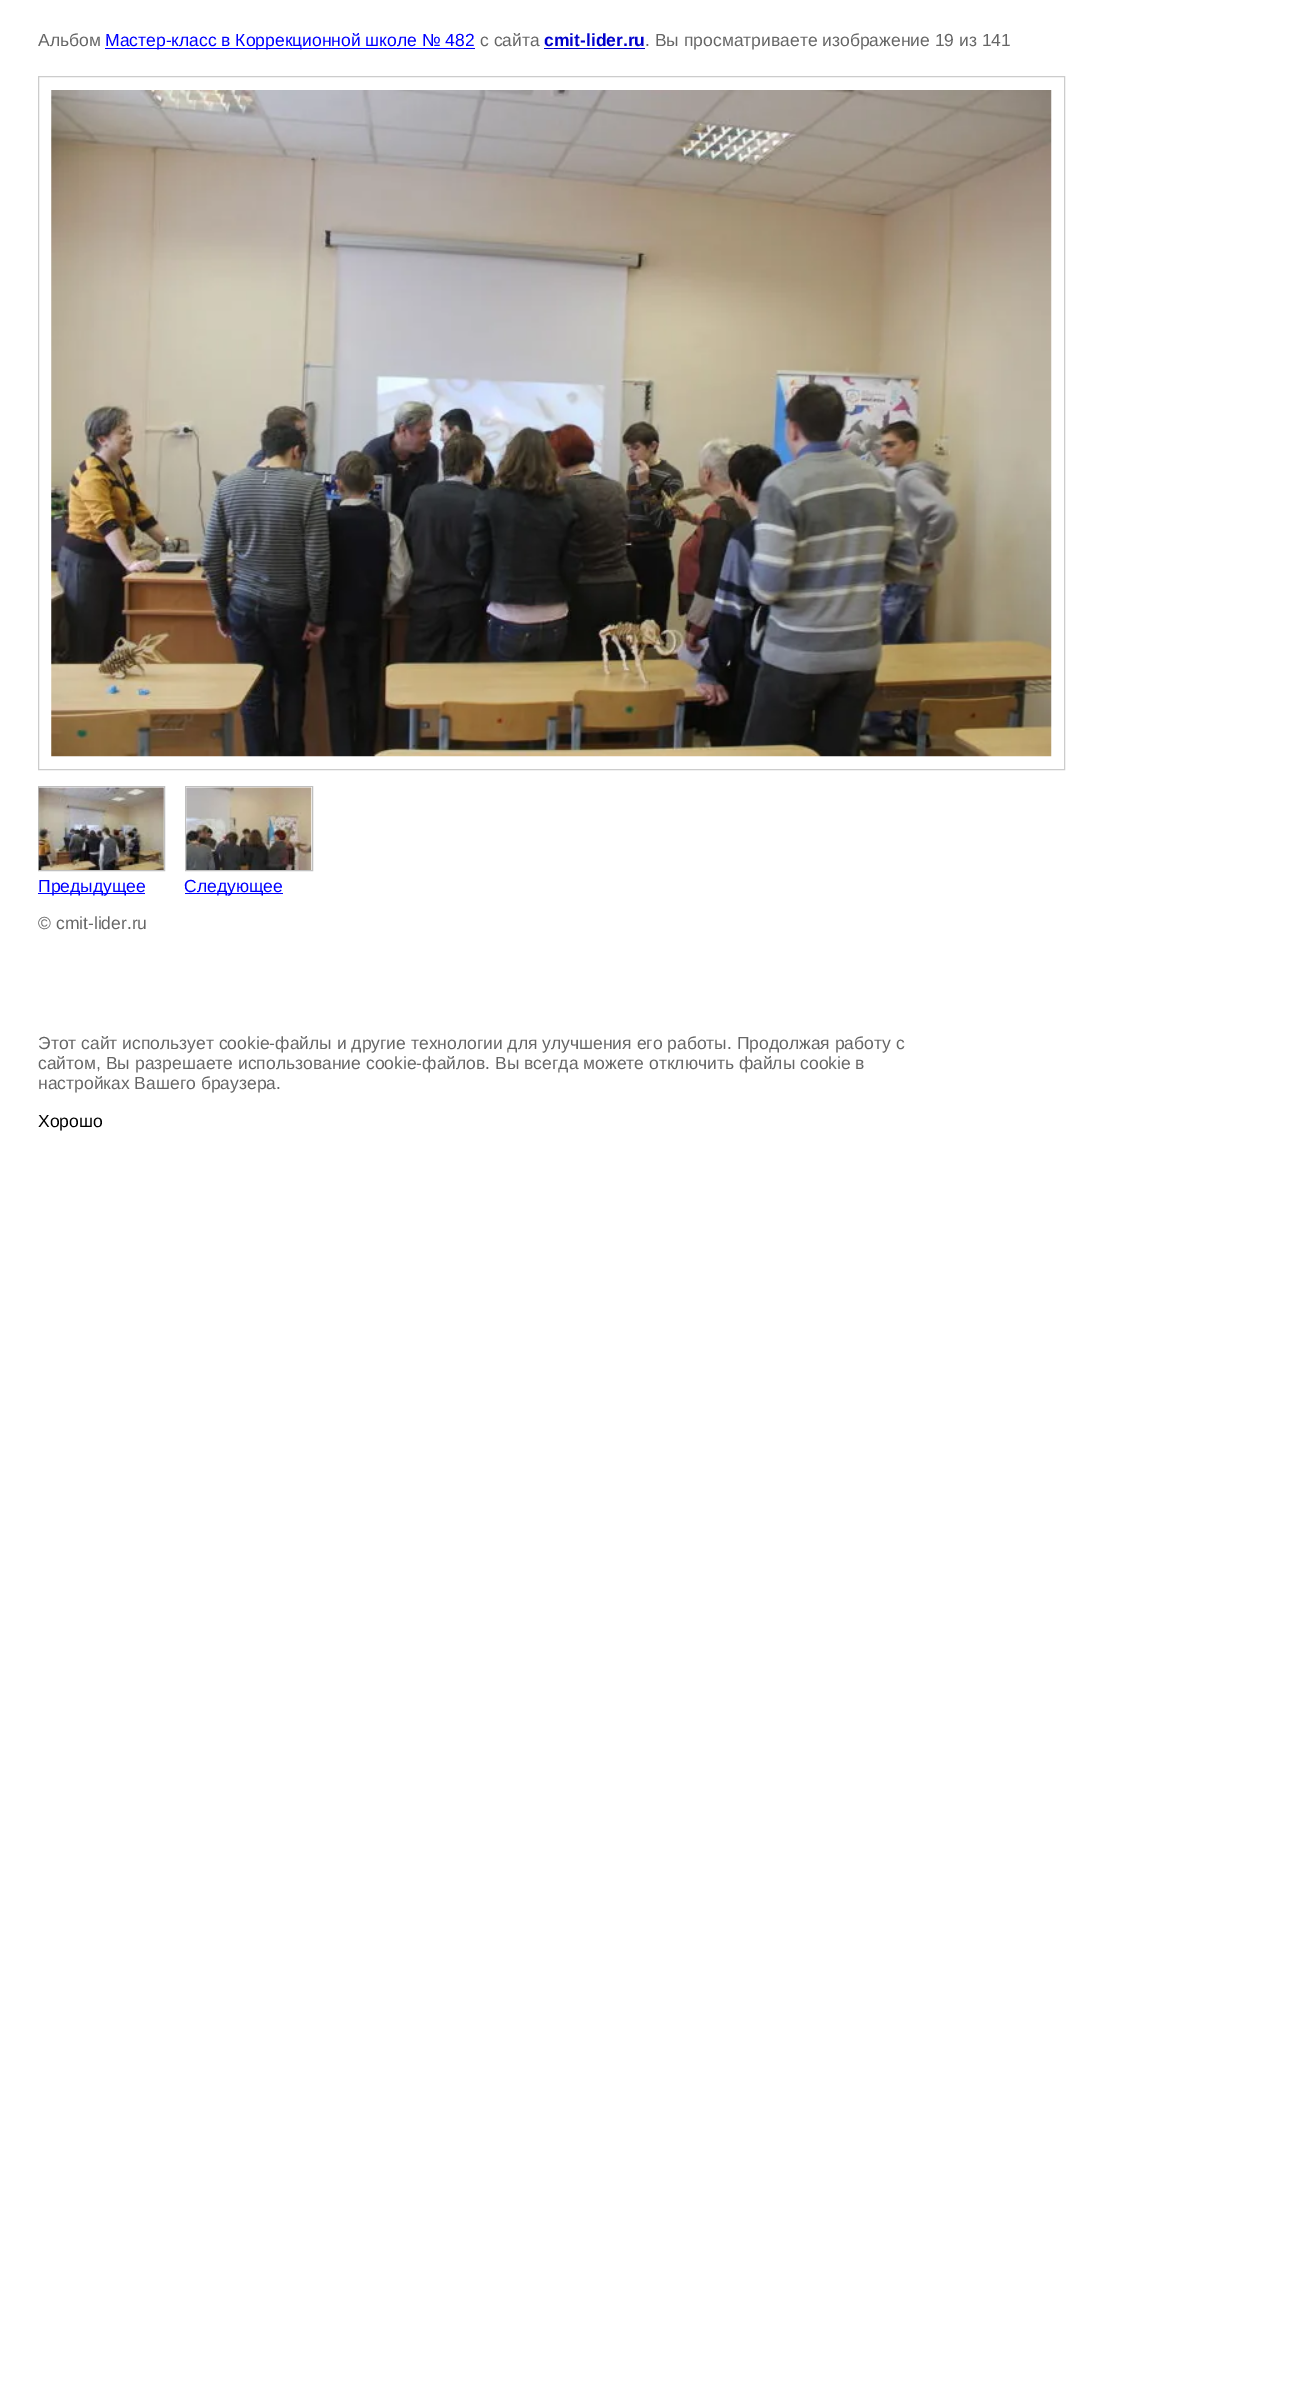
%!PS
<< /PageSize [1299 2388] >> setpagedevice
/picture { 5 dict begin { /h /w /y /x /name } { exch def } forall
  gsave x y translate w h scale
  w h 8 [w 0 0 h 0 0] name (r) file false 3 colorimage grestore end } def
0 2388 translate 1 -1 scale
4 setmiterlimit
1 setgray
0 0 1299 2388 rectfill
/LiberationSans-Regular [17.5 0 0 -17.5 0 0] selectfont
0.4 setgray
38 46 moveto (Альбом) show
0 0 1 setrgbcolor
105 48 370 1 rectfill
105 46 moveto (Мастер-класс в Коррекционной школе № 482) show
0.4 setgray
480 46 moveto (с сайта) show
/LiberationSans-Bold [17.5 0 0 -17.5 0 0] selectfont
0 0 0.8 setrgbcolor
544 46 moveto (cmit-lider.ru) show
544 48 101 1 rectfill
/LiberationSans-Regular [17.5 0 0 -17.5 0 0] selectfont
0.4 setgray
645 46 moveto (. Вы просматриваете изображение 19 из 141) show
0.8 setgray
38.5 76.5 1026 693 rectstroke
(img1.rgb) 51 90 1001 667 picture
0.753 setgray
38.5 786.5 126 84 rectstroke
(img2.rgb) 38 787 126 83 picture
0 0 1 setrgbcolor
38 893 107 1 rectfill
38 892 moveto (Предыдущее) show
0.753 setgray
185.5 786.5 127 84 rectstroke
(img3.rgb) 186 787 126 83 picture
0 0 1 setrgbcolor
185 893 98 1 rectfill
184 892 moveto (Следующее) show
0.4 setgray
38 929 moveto (© cmit-lider.ru) show
38 1049 moveto (Этот сайт использует cookie-файлы и другие технологии для улучшения его работы. Продолжая работу с) show
38 1069 moveto (сайтом, Вы разрешаете использование cookie-файлов. Вы всегда можете отключить файлы cookie в) show
38 1089 moveto (настройках Вашего браузера.) show
0 setgray
38 1127 moveto (Хорошо) show
showpage
